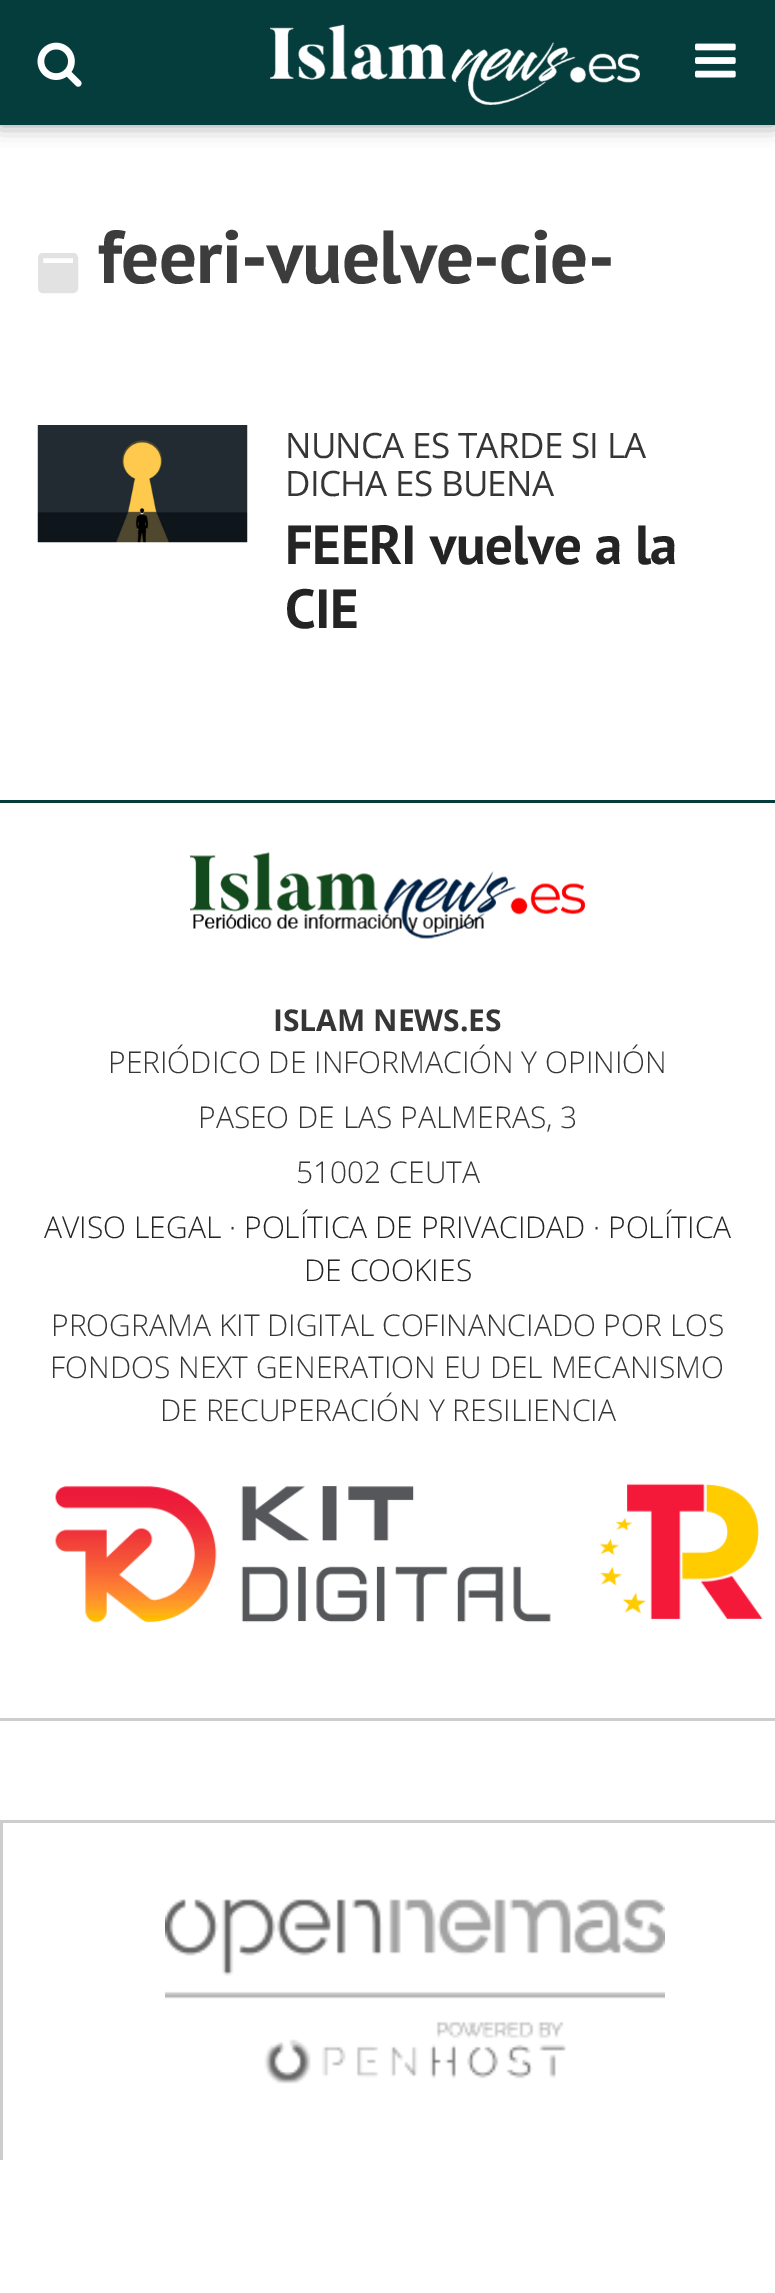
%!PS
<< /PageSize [775 2293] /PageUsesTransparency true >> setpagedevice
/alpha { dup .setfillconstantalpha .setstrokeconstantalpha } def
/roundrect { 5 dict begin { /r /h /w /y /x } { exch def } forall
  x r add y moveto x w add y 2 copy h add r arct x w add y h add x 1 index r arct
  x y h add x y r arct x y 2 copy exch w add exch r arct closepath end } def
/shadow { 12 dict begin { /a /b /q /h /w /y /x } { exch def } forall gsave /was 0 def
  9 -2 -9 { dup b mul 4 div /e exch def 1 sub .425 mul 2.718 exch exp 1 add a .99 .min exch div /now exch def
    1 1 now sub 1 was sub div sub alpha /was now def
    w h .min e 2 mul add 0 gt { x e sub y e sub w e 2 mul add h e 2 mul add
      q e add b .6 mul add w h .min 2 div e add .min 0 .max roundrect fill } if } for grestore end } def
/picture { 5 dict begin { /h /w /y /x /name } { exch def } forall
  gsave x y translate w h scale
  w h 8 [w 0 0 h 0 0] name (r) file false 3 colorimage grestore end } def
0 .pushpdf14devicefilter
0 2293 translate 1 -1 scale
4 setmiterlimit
1 setgray
0 0 775 2293 rectfill
0 setgray
0 0 775 125 0 10 0.4 shadow
0.02 0.239 0.239 setrgbcolor
0 0 775 125 rectfill
(img1.rgb) 270 24 370 81 picture
(img2.rgb) 37 42 45 45 picture
(img3.rgb) 695 43 41 35 picture
0.886 setgray
5 setlinewidth
40.5 255.5 35 35 2.5 roundrect stroke
43 263 30 25 rectfill
/PTSans-Bold [75 0 0 -75 0 0] selectfont
0.235 setgray
98 283 moveto -0.75 0 (feeri-vuelve-cie-) ashow
(img4.rgb) 37 425 211 118 picture
/OpenSans-Regular [35 0 0 -35 0 0] selectfont
0.212 setgray
285 458 moveto -0.7 0 (NUNCA ES TARDE SI LA) ashow
285 496 moveto -0.7 0 (DICHA ES BUENA) ashow
/PTSans-Bold [55 0 0 -55 0 0] selectfont
0.141 setgray
285 564 moveto -0.5 0 (FEERI vuelve a la) ashow
285 628 moveto -0.5 0 (CIE) ashow
0.02 0.239 0.239 setrgbcolor
0 800 775 3 rectfill
0.808 0.804 0.804 setrgbcolor
0 1718 775 3 rectfill
(img5.rgb) 190 852 395 87 picture
/OpenSans-Bold [30 0 0 -30 0 0] selectfont
0.212 setgray
273 1031 moveto (ISLAM NEWS.ES) show
/OpenSans-Light [30 0 0 -30 0 0] selectfont
108 1073 moveto (PERIÓDICO DE INFORMACIÓN Y OPINIÓN) show
198 1128 moveto (PASEO DE LAS PALMERAS, 3) show
296 1183 moveto (51002 CEUTA) show
0.141 setgray
44 1238 moveto (AVISO LEGAL) show
0.212 setgray
229 1238 moveto (·) show
0.141 setgray
244 1238 moveto (POLÍTICA DE PRIVACIDAD) show
0.212 setgray
593 1238 moveto (·) show
0.141 setgray
608 1238 moveto (POLÍTICA) show
304 1281 moveto (DE COOKIES) show
0.212 setgray
51 1336 moveto (PROGRAMA KIT DIGITAL COFINANCIADO POR LOS) show
50 1378 moveto (FONDOS NEXT GENERATION EU DEL MECANISMO) show
160 1421 moveto (DE RECUPERACIÓN Y RESILIENCIA) show
(img6.rgb) 55 1483 708 140 picture
0.808 0.804 0.804 setrgbcolor
0 1820 775 3 rectfill
0 1823 3 337 rectfill
(img7.rgb) 165 1898 500 186 picture
.poppdf14devicefilter showpage
